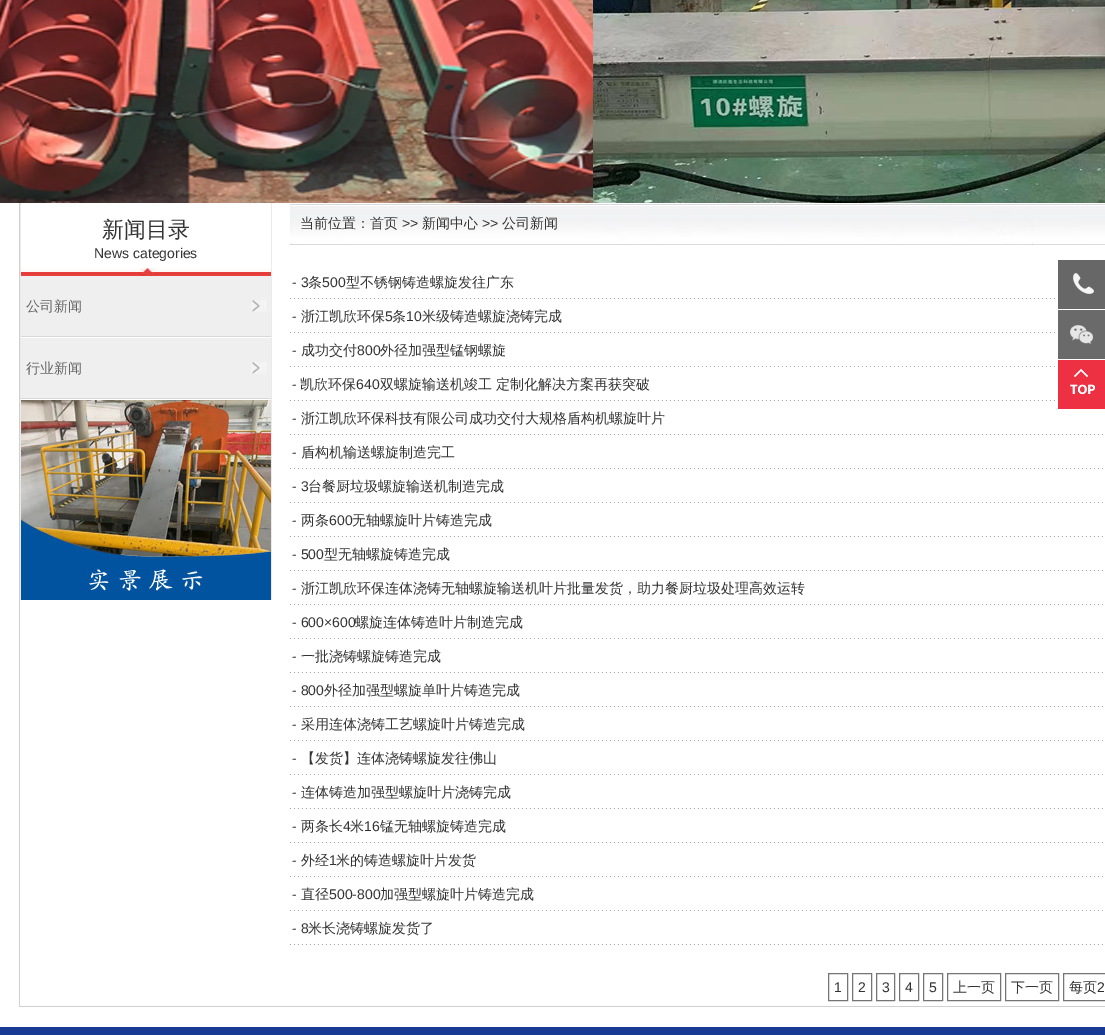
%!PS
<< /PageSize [1105 1035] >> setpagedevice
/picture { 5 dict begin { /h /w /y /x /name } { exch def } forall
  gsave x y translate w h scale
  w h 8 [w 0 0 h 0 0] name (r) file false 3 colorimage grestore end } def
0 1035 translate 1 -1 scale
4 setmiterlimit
1 setgray
0 0 1105 1035 rectfill
(img1.rgb) 0 0 1105 203 picture
0.816 setgray
19 1006 1086 1 rectfill
19 203 1 804 rectfill
0.922 setgray
271 203 1 397 rectfill
20 203 1 397 rectfill
(img2.rgb) 21 268 250 8 picture
/WenQuanYiZenHei-Medium [22 0 0 -22 0 0] selectfont
0.2 setgray
102 237 moveto (新闻目录) show
/LiberationSans-Regular [14 0 0 -14 0 0] selectfont
94 258 moveto (News categories) show
0.847 setgray
21 336 250 1 rectfill
0.937 setgray
21 276 250 60 rectfill
(img3.rgb) 251 300 16 12 picture
/WenQuanYiZenHei-Medium [14 0 0 -14 0 0] selectfont
0.4 setgray
26 311 moveto (公司新闻) show
0.847 setgray
21 398 250 1 rectfill
0.937 setgray
21 338 250 60 rectfill
(img3.rgb) 251 362 16 12 picture
0.4 setgray
26 373 moveto (行业新闻) show
(img4.rgb) 21 400 250 200 picture
(img5.rgb) 290 204 815 41 picture
0.2 setgray
300 228 moveto (当前位置：首页) show
/LiberationSans-Regular [14 0 0 -14 0 0] selectfont
402 228 moveto (>>) show
/WenQuanYiZenHei-Medium [14 0 0 -14 0 0] selectfont
422 228 moveto (新闻中心) show
/LiberationSans-Regular [14 0 0 -14 0 0] selectfont
482 228 moveto (>>) show
/WenQuanYiZenHei-Medium [14 0 0 -14 0 0] selectfont
502 228 moveto (公司新闻) show
(img6.rgb) 290 298 768 1 picture
/LiberationSans-Regular [14 0 0 -14 0 0] selectfont
292 287 moveto (- 3) show
/WenQuanYiZenHei-Medium [14 0 0 -14 0 0] selectfont
308 287 moveto (条) show
/LiberationSans-Regular [14 0 0 -14 0 0] selectfont
322 287 moveto (500) show
/WenQuanYiZenHei-Medium [14 0 0 -14 0 0] selectfont
346 287 moveto (型不锈钢铸造螺旋发往广东) show
(img6.rgb) 290 332 768 1 picture
/LiberationSans-Regular [14 0 0 -14 0 0] selectfont
292 321 moveto (-) show
/WenQuanYiZenHei-Medium [14 0 0 -14 0 0] selectfont
301 321 moveto (浙江凯欣环保) show
/LiberationSans-Regular [14 0 0 -14 0 0] selectfont
385 321 moveto (5) show
/WenQuanYiZenHei-Medium [14 0 0 -14 0 0] selectfont
392 321 moveto (条) show
/LiberationSans-Regular [14 0 0 -14 0 0] selectfont
406 321 moveto (10) show
/WenQuanYiZenHei-Medium [14 0 0 -14 0 0] selectfont
422 321 moveto (米级铸造螺旋浇铸完成) show
(img6.rgb) 290 366 768 1 picture
/LiberationSans-Regular [14 0 0 -14 0 0] selectfont
292 355 moveto (-) show
/WenQuanYiZenHei-Medium [14 0 0 -14 0 0] selectfont
301 355 moveto (成功交付) show
/LiberationSans-Regular [14 0 0 -14 0 0] selectfont
357 355 moveto (800) show
/WenQuanYiZenHei-Medium [14 0 0 -14 0 0] selectfont
380 355 moveto (外径加强型锰钢螺旋) show
(img6.rgb) 290 400 768 1 picture
/LiberationSans-Regular [14 0 0 -14 0 0] selectfont
292 389 moveto (-) show
/WenQuanYiZenHei-Medium [14 0 0 -14 0 0] selectfont
300 389 moveto (凯欣环保) show
/LiberationSans-Regular [14 0 0 -14 0 0] selectfont
356 389 moveto (640) show
/WenQuanYiZenHei-Medium [14 0 0 -14 0 0] selectfont
380 389 moveto (双螺旋输送机竣工 定制化解决方案再获突破) show
(img7.rgb) 290 434 813 1 picture
/LiberationSans-Regular [14 0 0 -14 0 0] selectfont
292 423 moveto (-) show
/WenQuanYiZenHei-Medium [14 0 0 -14 0 0] selectfont
301 423 moveto (浙江凯欣环保科技有限公司成功交付大规格盾构机螺旋叶片) show
(img7.rgb) 290 468 813 1 picture
/LiberationSans-Regular [14 0 0 -14 0 0] selectfont
292 457 moveto (-) show
/WenQuanYiZenHei-Medium [14 0 0 -14 0 0] selectfont
301 457 moveto (盾构机输送螺旋制造完工) show
(img7.rgb) 290 502 813 1 picture
/LiberationSans-Regular [14 0 0 -14 0 0] selectfont
292 491 moveto (- 3) show
/WenQuanYiZenHei-Medium [14 0 0 -14 0 0] selectfont
308 491 moveto (台餐厨垃圾螺旋输送机制造完成) show
(img7.rgb) 290 536 813 1 picture
/LiberationSans-Regular [14 0 0 -14 0 0] selectfont
292 525 moveto (-) show
/WenQuanYiZenHei-Medium [14 0 0 -14 0 0] selectfont
301 525 moveto (两条) show
/LiberationSans-Regular [14 0 0 -14 0 0] selectfont
329 525 moveto (600) show
/WenQuanYiZenHei-Medium [14 0 0 -14 0 0] selectfont
352 525 moveto (无轴螺旋叶片铸造完成) show
(img7.rgb) 290 570 813 1 picture
/LiberationSans-Regular [14 0 0 -14 0 0] selectfont
292 559 moveto (- 500) show
/WenQuanYiZenHei-Medium [14 0 0 -14 0 0] selectfont
324 559 moveto (型无轴螺旋铸造完成) show
(img7.rgb) 290 604 813 1 picture
/LiberationSans-Regular [14 0 0 -14 0 0] selectfont
292 593 moveto (-) show
/WenQuanYiZenHei-Medium [14 0 0 -14 0 0] selectfont
301 593 moveto (浙江凯欣环保连体浇铸无轴螺旋输送机叶片批量发货，助力餐厨垃圾处理高效运转) show
(img7.rgb) 290 638 813 1 picture
/LiberationSans-Regular [14 0 0 -14 0 0] selectfont
292 627 moveto (- 600×600) show
/WenQuanYiZenHei-Medium [14 0 0 -14 0 0] selectfont
355 627 moveto (螺旋连体铸造叶片制造完成) show
(img7.rgb) 290 672 813 1 picture
/LiberationSans-Regular [14 0 0 -14 0 0] selectfont
292 661 moveto (-) show
/WenQuanYiZenHei-Medium [14 0 0 -14 0 0] selectfont
301 661 moveto (一批浇铸螺旋铸造完成) show
(img7.rgb) 290 706 813 1 picture
/LiberationSans-Regular [14 0 0 -14 0 0] selectfont
292 695 moveto (- 800) show
/WenQuanYiZenHei-Medium [14 0 0 -14 0 0] selectfont
324 695 moveto (外径加强型螺旋单叶片铸造完成) show
(img7.rgb) 290 740 813 1 picture
/LiberationSans-Regular [14 0 0 -14 0 0] selectfont
292 729 moveto (-) show
/WenQuanYiZenHei-Medium [14 0 0 -14 0 0] selectfont
301 729 moveto (采用连体浇铸工艺螺旋叶片铸造完成) show
(img7.rgb) 290 774 813 1 picture
/LiberationSans-Regular [14 0 0 -14 0 0] selectfont
292 763 moveto (-) show
/WenQuanYiZenHei-Medium [14 0 0 -14 0 0] selectfont
301 763 moveto (【发货】连体浇铸螺旋发往佛山) show
(img7.rgb) 290 808 813 1 picture
/LiberationSans-Regular [14 0 0 -14 0 0] selectfont
292 797 moveto (-) show
/WenQuanYiZenHei-Medium [14 0 0 -14 0 0] selectfont
301 797 moveto (连体铸造加强型螺旋叶片浇铸完成) show
(img7.rgb) 290 842 813 1 picture
/LiberationSans-Regular [14 0 0 -14 0 0] selectfont
292 831 moveto (-) show
/WenQuanYiZenHei-Medium [14 0 0 -14 0 0] selectfont
301 831 moveto (两条长) show
/LiberationSans-Regular [14 0 0 -14 0 0] selectfont
343 831 moveto (4) show
/WenQuanYiZenHei-Medium [14 0 0 -14 0 0] selectfont
350 831 moveto (米) show
/LiberationSans-Regular [14 0 0 -14 0 0] selectfont
364 831 moveto (16) show
/WenQuanYiZenHei-Medium [14 0 0 -14 0 0] selectfont
380 831 moveto (锰无轴螺旋铸造完成) show
(img7.rgb) 290 876 813 1 picture
/LiberationSans-Regular [14 0 0 -14 0 0] selectfont
292 865 moveto (-) show
/WenQuanYiZenHei-Medium [14 0 0 -14 0 0] selectfont
301 865 moveto (外经) show
/LiberationSans-Regular [14 0 0 -14 0 0] selectfont
329 865 moveto (1) show
/WenQuanYiZenHei-Medium [14 0 0 -14 0 0] selectfont
336 865 moveto (米的铸造螺旋叶片发货) show
(img7.rgb) 290 910 813 1 picture
/LiberationSans-Regular [14 0 0 -14 0 0] selectfont
292 899 moveto (-) show
/WenQuanYiZenHei-Medium [14 0 0 -14 0 0] selectfont
301 899 moveto (直径) show
/LiberationSans-Regular [14 0 0 -14 0 0] selectfont
329 899 moveto (500-800) show
/WenQuanYiZenHei-Medium [14 0 0 -14 0 0] selectfont
380 899 moveto (加强型螺旋叶片铸造完成) show
(img7.rgb) 290 944 813 1 picture
/LiberationSans-Regular [14 0 0 -14 0 0] selectfont
292 933 moveto (- 8) show
/WenQuanYiZenHei-Medium [14 0 0 -14 0 0] selectfont
308 933 moveto (米长浇铸螺旋发货了) show
0.459 setgray
828.5 973.5 19 27 rectstroke
/LiberationSans-Regular [14 0 0 -14 0 0] selectfont
0.2 setgray
834 992 moveto (1) show
0.459 setgray
852.5 973.5 19 27 rectstroke
0.2 setgray
858 992 moveto (2) show
0.459 setgray
876.5 973.5 18 27 rectstroke
0.2 setgray
882 992 moveto (3) show
0.459 setgray
899.5 973.5 19 27 rectstroke
0.2 setgray
905 992 moveto (4) show
0.459 setgray
923.5 973.5 19 27 rectstroke
0.2 setgray
929 992 moveto (5) show
0.459 setgray
947.5 973.5 53 27 rectstroke
/WenQuanYiZenHei-Medium [14 0 0 -14 0 0] selectfont
0.2 setgray
953 992 moveto (上一页) show
0.459 setgray
1005.5 973.5 53 27 rectstroke
0.2 setgray
1011 992 moveto (下一页) show
0.459 setgray
1063.5 973.5 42 27 rectstroke
0.176 setgray
1069 992 moveto (每页) show
/LiberationSans-Regular [14 0 0 -14 0 0] selectfont
1097 992 moveto (2) show
(img8.rgb) 1058 260 47 49 picture
(img9.rgb) 1058 310 47 49 picture
(img10.rgb) 1058 360 47 49 picture
0.094 0.227 0.573 setrgbcolor
0 1027 1105 8 rectfill
showpage
